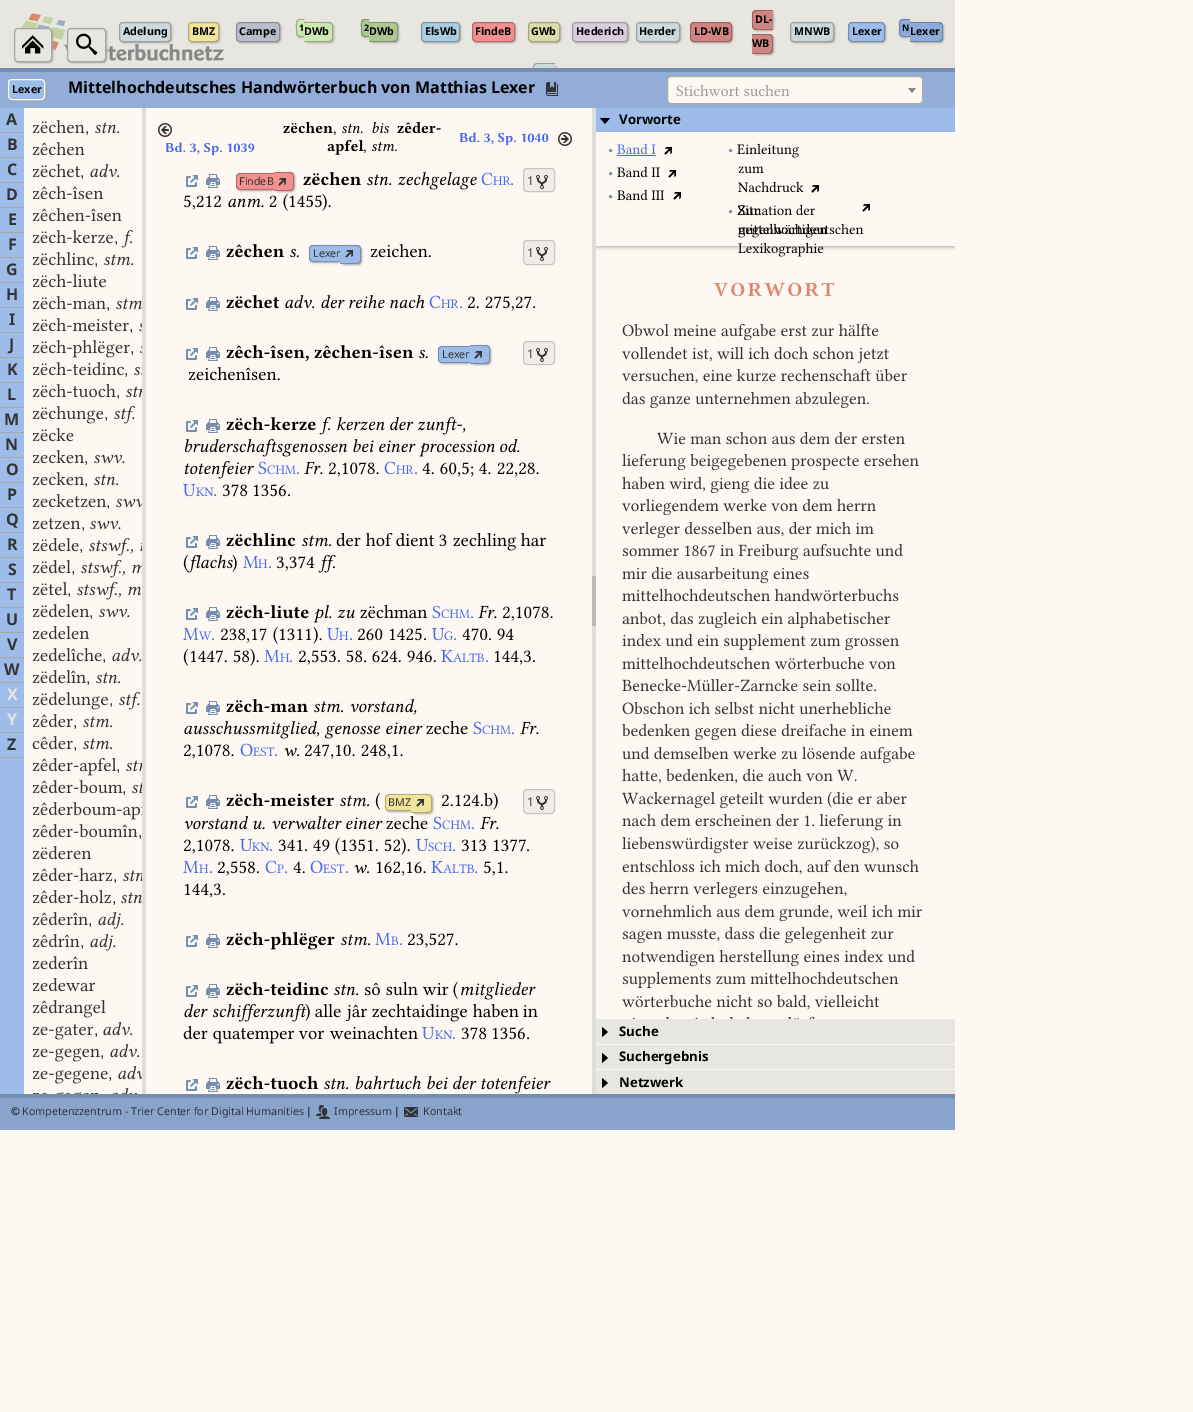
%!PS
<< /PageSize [1193 1412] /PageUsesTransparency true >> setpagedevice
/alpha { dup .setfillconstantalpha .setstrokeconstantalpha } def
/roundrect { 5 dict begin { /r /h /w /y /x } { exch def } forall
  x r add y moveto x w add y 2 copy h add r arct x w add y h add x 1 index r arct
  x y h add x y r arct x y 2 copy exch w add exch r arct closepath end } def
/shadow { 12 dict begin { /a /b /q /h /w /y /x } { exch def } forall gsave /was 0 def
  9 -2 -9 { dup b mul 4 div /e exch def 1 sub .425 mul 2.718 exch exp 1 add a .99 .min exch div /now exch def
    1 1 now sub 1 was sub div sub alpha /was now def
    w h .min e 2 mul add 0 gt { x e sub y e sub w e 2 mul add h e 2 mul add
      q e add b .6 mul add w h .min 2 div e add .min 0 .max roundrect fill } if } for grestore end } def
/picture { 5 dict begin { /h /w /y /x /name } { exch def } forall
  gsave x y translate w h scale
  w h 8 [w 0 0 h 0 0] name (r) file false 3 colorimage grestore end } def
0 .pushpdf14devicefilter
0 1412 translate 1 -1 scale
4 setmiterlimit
0.992 0.976 0.949 setrgbcolor
0 0 1193 1412 rectfill
0.459 0.553 0.686 setrgbcolor
0 68 955 4 rectfill
0.91 0.902 0.882 setrgbcolor
0 0 955 68 rectfill
(img1.rgb) 21 13 203 48 picture
0.659 0.651 0.631 setrgbcolor
15 29 38 34 4 1 1 shadow
0.91 0.902 0.882 setrgbcolor
14.5 28.5 37 33 3.5 roundrect gsave fill grestore
0.659 0.651 0.631 setrgbcolor
stroke
(img2.rgb) 22 35 22 19 picture
68 29 39 34 4 1 1 shadow
0.91 0.902 0.882 setrgbcolor
67.5 28.5 38 33 3.5 roundrect gsave fill grestore
0.659 0.651 0.631 setrgbcolor
stroke
(img3.rgb) 76 33 22 22 picture
120 23 52 20 4 1 1 shadow
0.804 0.855 0.871 setrgbcolor
119.5 22.5 51 19 3.5 roundrect gsave fill grestore
0.6 0.639 0.651 setrgbcolor
stroke
/NotoSans-Bold [10.7 0 0 -10.7 0 0] selectfont
0 setgray
123 35 moveto (Adelung) show
0.659 0.651 0.631 setrgbcolor
189 23 31 20 4 1 1 shadow
0.937 0.898 0.608 setrgbcolor
188.5 22.5 30 19 3.5 roundrect gsave fill grestore
0.702 0.671 0.455 setrgbcolor
stroke
0 setgray
192 35 moveto (BMZ) show
0.659 0.651 0.631 setrgbcolor
237 23 44 20 4 1 1 shadow
0.729 0.745 0.796 setrgbcolor
236.5 22.5 43 19 3.5 roundrect gsave fill grestore
0.545 0.557 0.596 setrgbcolor
stroke
0 setgray
239 35 moveto (Campe) show
0.659 0.651 0.631 setrgbcolor
297 20 8 18 4 1 1 shadow
0.808 0.91 0.702 setrgbcolor
newpath 300 19 moveto 304 19 lineto 304 37 lineto 300 37 lineto 298 37 296 35 296 33 curveto 296 23 lineto 296 21 298 19 300 19 curveto closepath fill
0.604 0.682 0.525 setrgbcolor
newpath 300 19 moveto 304 19 lineto 304 37 lineto 296 37 296 36.5 296 28 curveto 296 25 295 19 300 19 curveto closepath 300 20 moveto 304 20 lineto 304 36 lineto 296.5 36 297 35.5 297 28 curveto 297 25.5 296 20 300 20 curveto closepath eofill
0.659 0.651 0.631 setrgbcolor
305 23 29 20 4 1 1 shadow
/NotoSans-Bold [9 0 0 -9 0 0] selectfont
0 setgray
299 31 moveto (1) show
0.808 0.91 0.702 setrgbcolor
newpath 304 22 moveto 329 22 lineto 331 22 333 24 333 26 curveto 333 38 lineto 333 40 331 42 329 42 curveto 304 42 lineto closepath fill
0.604 0.682 0.525 setrgbcolor
newpath 304 22 moveto 329 22 lineto 331 22 333 24 333 26 curveto 333 38 lineto 333 40 331 42 329 42 curveto 304 42 lineto closepath 304 23 moveto 325 23 lineto 333.5 23 332 24 332 32 curveto 332 40 333.5 41 325 41 curveto 304 41 lineto closepath eofill
/NotoSans-Bold [10.7 0 0 -10.7 0 0] selectfont
0 setgray
304 35 moveto (DWb) show
0.659 0.651 0.631 setrgbcolor
362 20 8 18 4 1 1 shadow
0.682 0.784 0.576 setrgbcolor
newpath 365 19 moveto 369 19 lineto 369 37 lineto 365 37 lineto 363 37 361 35 361 33 curveto 361 23 lineto 361 21 363 19 365 19 curveto closepath fill
0.51 0.588 0.431 setrgbcolor
newpath 365 19 moveto 369 19 lineto 369 37 lineto 361 37 361 36.5 361 28 curveto 361 25 360 19 365 19 curveto closepath 365 20 moveto 369 20 lineto 369 36 lineto 361.5 36 362 35.5 362 28 curveto 362 25.5 361 20 365 20 curveto closepath eofill
0.659 0.651 0.631 setrgbcolor
370 23 29 20 4 1 1 shadow
/NotoSans-Bold [9 0 0 -9 0 0] selectfont
0 setgray
364 31 moveto (2) show
0.682 0.784 0.576 setrgbcolor
newpath 369 22 moveto 394 22 lineto 396 22 398 24 398 26 curveto 398 38 lineto 398 40 396 42 394 42 curveto 369 42 lineto closepath fill
0.51 0.588 0.431 setrgbcolor
newpath 369 22 moveto 394 22 lineto 396 22 398 24 398 26 curveto 398 38 lineto 398 40 396 42 394 42 curveto 369 42 lineto closepath 369 23 moveto 390 23 lineto 398.5 23 397 24 397 32 curveto 397 40 398.5 41 390 41 curveto 369 41 lineto closepath eofill
/NotoSans-Bold [10.7 0 0 -10.7 0 0] selectfont
0 setgray
369 35 moveto (DWb) show
0.659 0.651 0.631 setrgbcolor
422 23 39 20 4 1 1 shadow
0.667 0.804 0.875 setrgbcolor
421.5 22.5 38 19 3.5 roundrect gsave fill grestore
0.498 0.6 0.655 setrgbcolor
stroke
0 setgray
425 35 moveto (ElsWb) show
0.659 0.651 0.631 setrgbcolor
473 23 43 20 4 1 1 shadow
0.949 0.561 0.561 setrgbcolor
472.5 22.5 42 19 3.5 roundrect gsave fill grestore
0.71 0.42 0.42 setrgbcolor
stroke
0 setgray
475 35 moveto (FindeB) show
0.659 0.651 0.631 setrgbcolor
529 23 32 20 4 1 1 shadow
0.859 0.859 0.675 setrgbcolor
528.5 22.5 31 19 3.5 roundrect gsave fill grestore
0.643 0.643 0.506 setrgbcolor
stroke
0 setgray
531 35 moveto (GWb) show
0.659 0.651 0.631 setrgbcolor
573 23 56 20 4 1 1 shadow
0.855 0.804 0.871 setrgbcolor
572.5 22.5 55 19 3.5 roundrect gsave fill grestore
0.639 0.6 0.651 setrgbcolor
stroke
0 setgray
576 35 moveto (Hederich) show
0.659 0.651 0.631 setrgbcolor
637 23 44 20 4 1 1 shadow
0.8 0.855 0.871 setrgbcolor
636.5 22.5 43 19 3.5 roundrect gsave fill grestore
0.6 0.639 0.651 setrgbcolor
stroke
0 setgray
639 35 moveto (Herder) show
0.659 0.651 0.631 setrgbcolor
691 23 42 20 4 1 1 shadow
0.816 0.522 0.506 setrgbcolor
690.5 22.5 41 19 3.5 roundrect gsave fill grestore
0.612 0.388 0.376 setrgbcolor
stroke
0 setgray
694 35 moveto (LD-WB) show
0.659 0.651 0.631 setrgbcolor
753 11 21 20 4 1 1 shadow
0.816 0.522 0.506 setrgbcolor
newpath 756 10 moveto 773 10 lineto 773 30 lineto 756 30 lineto 754 30 752 28 752 26 curveto 752 14 lineto 752 12 754 10 756 10 curveto closepath fill
0.612 0.388 0.376 setrgbcolor
newpath 756 10 moveto 773 10 lineto 773 30 lineto 756 30 lineto 754 30 752 28 752 26 curveto 752 14 lineto 752 12 754 10 756 10 curveto closepath 756 11 moveto 773 11 lineto 773 29 lineto 756 29 lineto 754.5 29 753 27.5 753 26 curveto 753 14 lineto 753 12.5 754.5 11 756 11 curveto closepath eofill
0 setgray
755 23 moveto (DL-) show
0.659 0.651 0.631 setrgbcolor
753 35 21 20 4 1 1 shadow
0.816 0.522 0.506 setrgbcolor
newpath 752 34 moveto 769 34 lineto 771 34 773 36 773 38 curveto 773 50 lineto 773 52 771 54 769 54 curveto 752 54 lineto closepath fill
0.612 0.388 0.376 setrgbcolor
newpath 752 34 moveto 769 34 lineto 771 34 773 36 773 38 curveto 773 50 lineto 773 52 771 54 769 54 curveto 752 54 lineto closepath 752 35 moveto 769 35 lineto 770.5 35 772 36.5 772 38 curveto 772 50 lineto 772 51.5 770.5 53 769 53 curveto 752 53 lineto closepath eofill
0 setgray
752 47 moveto (WB) show
0.659 0.651 0.631 setrgbcolor
791 23 44 20 4 1 1 shadow
0.792 0.847 0.847 setrgbcolor
790.5 22.5 43 19 3.5 roundrect gsave fill grestore
0.592 0.635 0.635 setrgbcolor
stroke
0 setgray
794 35 moveto (MNWB) show
0.659 0.651 0.631 setrgbcolor
849 23 37 20 4 1 1 shadow
0.616 0.737 0.918 setrgbcolor
848.5 22.5 36 19 3.5 roundrect gsave fill grestore
0.459 0.553 0.686 setrgbcolor
stroke
0 setgray
852 35 moveto (Lexer) show
0.659 0.651 0.631 setrgbcolor
900 20 11 18 4 1 1 shadow
0.553 0.675 0.855 setrgbcolor
newpath 903 19 moveto 910 19 lineto 910 37 lineto 903 37 lineto 901 37 899 35 899 33 curveto 899 23 lineto 899 21 901 19 903 19 curveto closepath fill
0.412 0.506 0.639 setrgbcolor
newpath 903 19 moveto 910 19 lineto 910 37 lineto 903 37 lineto 901 37 899 35 899 33 curveto 899 23 lineto 899 21 901 19 903 19 curveto closepath 903 20 moveto 910 20 lineto 910 36 lineto 903 36 lineto 901.5 36 900 34.5 900 33 curveto 900 23 lineto 900 21.5 901.5 20 903 20 curveto closepath eofill
0.659 0.651 0.631 setrgbcolor
911 23 33 20 4 1 1 shadow
/NotoSans-Bold [9 0 0 -9 0 0] selectfont
0 setgray
902 31 moveto (N) show
0.553 0.675 0.855 setrgbcolor
newpath 910 22 moveto 939 22 lineto 941 22 943 24 943 26 curveto 943 38 lineto 943 40 941 42 939 42 curveto 910 42 lineto closepath fill
0.412 0.506 0.639 setrgbcolor
newpath 910 22 moveto 939 22 lineto 941 22 943 24 943 26 curveto 943 38 lineto 943 40 941 42 939 42 curveto 910 42 lineto closepath 910 23 moveto 939 23 lineto 940.5 23 942 24.5 942 26 curveto 942 38 lineto 942 39.5 940.5 41 939 41 curveto 910 41 lineto closepath eofill
/NotoSans-Bold [10.7 0 0 -10.7 0 0] selectfont
0 setgray
910 35 moveto (Lexer) show
gsave
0 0 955 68 rectclip
0.659 0.651 0.631 setrgbcolor
534 64 22 20 4 1 1 shadow
grestore
0.804 0.855 0.871 setrgbcolor
newpath 537 63 moveto 555 63 lineto 555 68 lineto 533 68 lineto 533 67 lineto 533 65 535 63 537 63 curveto closepath fill
gsave
0 0 955 68 rectclip
0.6 0.639 0.651 setrgbcolor
newpath 537 63 moveto 555 63 lineto 555 83 lineto 537 83 lineto 535 83 533 81 533 79 curveto 533 67 lineto 533 65 535 63 537 63 curveto closepath 537 64 moveto 555 64 lineto 555 82 lineto 537 82 lineto 535.5 82 534 80.5 534 79 curveto 534 67 lineto 534 65.5 535.5 64 537 64 curveto closepath eofill
grestore
0.569 0.678 0.847 setrgbcolor
0 72 955 36 rectfill
0.659 0.651 0.631 setrgbcolor
9 80 37 21 4 1 1 shadow
0.616 0.737 0.918 setrgbcolor
8.5 79.5 36 20 3.5 roundrect gsave fill grestore
0.992 0.976 0.949 setrgbcolor
stroke
0 setgray
12 93 moveto (Lexer) show
/NotoSans-Bold [16 0 0 -16 0 0] selectfont
68 93 moveto (Mittelhochdeutsches Handwörterbuch von Matthias Lexer) show
(img4.rgb) 546 82 12 14 picture
0.992 0.976 0.949 setrgbcolor
667.5 76.5 255 27 3.5 roundrect gsave fill grestore
0.667 setgray
stroke
(img5.rgb) 676 84 114 13 picture
0.533 setgray
newpath 908 88 moveto 916 88 lineto 912 93 lineto closepath fill
0.867 setgray
142 108 4 986 rectfill
1 setgray
596 1016 359 3 rectfill
0.992 0.976 0.949 setrgbcolor
newpath 596 132 moveto 955 132 lineto 955 1016 lineto 955 1017.5 953.5 1019 952 1019 curveto 599 1019 lineto 597.5 1019 596 1017.5 596 1016 curveto closepath fill
gsave
newpath 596 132 moveto 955 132 lineto 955 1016 lineto 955 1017.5 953.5 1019 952 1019 curveto 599 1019 lineto 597.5 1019 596 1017.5 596 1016 curveto closepath clip newpath
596 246 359 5 rectclip
0.659 0.651 0.631 setrgbcolor
597 133 359 114 0 2 1 shadow
grestore
0.867 setgray
592 108 4 986 rectfill
0.733 setgray
592 576 4 50 rectfill
0.616 0.737 0.918 setrgbcolor
0 108 24 986 rectfill
0.659 0.651 0.631 setrgbcolor
0 132 24 1 rectfill
0.2 setgray
6 125 moveto (A) show
0.659 0.651 0.631 setrgbcolor
0 157 24 1 rectfill
0.2 setgray
7 150 moveto (B) show
0.659 0.651 0.631 setrgbcolor
0 182 24 1 rectfill
0.2 setgray
7 175 moveto (C) show
0.659 0.651 0.631 setrgbcolor
0 207 24 1 rectfill
0.2 setgray
6 200 moveto (D) show
0.659 0.651 0.631 setrgbcolor
0 232 24 1 rectfill
0.2 setgray
8 225 moveto (E) show
0.659 0.651 0.631 setrgbcolor
0 257 24 1 rectfill
0.2 setgray
8 250 moveto (F) show
0.659 0.651 0.631 setrgbcolor
0 282 24 1 rectfill
0.2 setgray
6 275 moveto (G) show
0.659 0.651 0.631 setrgbcolor
0 307 24 1 rectfill
0.2 setgray
6 300 moveto (H) show
0.659 0.651 0.631 setrgbcolor
0 332 24 1 rectfill
0.2 setgray
9 325 moveto (I) show
0.659 0.651 0.631 setrgbcolor
0 357 24 1 rectfill
0.2 setgray
9 350 moveto (J) show
0.659 0.651 0.631 setrgbcolor
0 382 24 1 rectfill
0.2 setgray
7 375 moveto (K) show
0.659 0.651 0.631 setrgbcolor
0 407 24 1 rectfill
0.2 setgray
7 400 moveto (L) show
0.659 0.651 0.631 setrgbcolor
0 432 24 1 rectfill
0.2 setgray
4 425 moveto (M) show
0.659 0.651 0.631 setrgbcolor
0 457 24 1 rectfill
0.2 setgray
5 450 moveto (N) show
0.659 0.651 0.631 setrgbcolor
0 482 24 1 rectfill
0.2 setgray
6 475 moveto (O) show
0.659 0.651 0.631 setrgbcolor
0 507 24 1 rectfill
0.2 setgray
7 500 moveto (P) show
0.659 0.651 0.631 setrgbcolor
0 532 24 1 rectfill
0.2 setgray
6 525 moveto (Q) show
0.659 0.651 0.631 setrgbcolor
0 557 24 1 rectfill
0.2 setgray
7 550 moveto (R) show
0.659 0.651 0.631 setrgbcolor
0 582 24 1 rectfill
0.2 setgray
8 575 moveto (S) show
0.659 0.651 0.631 setrgbcolor
0 607 24 1 rectfill
0.2 setgray
7 600 moveto (T) show
0.659 0.651 0.631 setrgbcolor
0 632 24 1 rectfill
0.2 setgray
6 625 moveto (U) show
0.659 0.651 0.631 setrgbcolor
0 657 24 1 rectfill
0.2 setgray
7 650 moveto (V) show
0.659 0.651 0.631 setrgbcolor
0 682 24 1 rectfill
0.2 setgray
4 675 moveto (W) show
0.659 0.651 0.631 setrgbcolor
0 707 24 1 rectfill
0.91 0.902 0.882 setrgbcolor
7 700 moveto (X) show
0.659 0.651 0.631 setrgbcolor
0 732 24 1 rectfill
0.91 0.902 0.882 setrgbcolor
7 725 moveto (Y) show
0.659 0.651 0.631 setrgbcolor
0 757 24 1 rectfill
0.2 setgray
7 750 moveto (Z) show
(img6.rgb) 32 120 53 14 picture
/LiberationSans-Regular [16 0 0 -16 0 0] selectfont
85 133 moveto (,) show
(img7.rgb) 95 122 25 12 picture
(img8.rgb) 32 142 53 14 picture
(img9.rgb) 32 164 49 14 picture
80 177 moveto (,) show
(img10.rgb) 90 164 30 14 picture
(img11.rgb) 32 186 72 14 picture
(img12.rgb) 32 208 90 14 picture
(img13.rgb) 32 230 81 14 picture
114 243 moveto (,) show
(img14.rgb) 121 230 12 18 picture
(img15.rgb) 32 252 62 14 picture
94 265 moveto (,) show
(img16.rgb) 104 254 30 12 picture
(img17.rgb) 32 274 74 14 picture
(img18.rgb) 32 296 74 14 picture
106 309 moveto (,) show
(img19.rgb) 116 298 26 12 picture
(img20.rgb) 32 318 97 14 picture
129 331 moveto (,) show
(img21.rgb) 139 323 3 9 picture
(img22.rgb) 32 340 98 18 picture
130 353 moveto (,) show
(img23.rgb) 140 345 2 9 picture
(img24.rgb) 32 362 92 14 picture
124 375 moveto (,) show
(img25.rgb) 134 366 8 10 picture
(img26.rgb) 32 384 84 14 picture
116 397 moveto (,) show
(img27.rgb) 126 386 16 12 picture
(img28.rgb) 32 406 72 18 picture
104 419 moveto (,) show
(img29.rgb) 114 406 21 18 picture
(img30.rgb) 32 428 42 14 picture
(img31.rgb) 32 450 52 14 picture
84 463 moveto (,) show
(img32.rgb) 94 454 31 10 picture
(img31.rgb) 32 472 52 14 picture
84 485 moveto (,) show
(img7.rgb) 94 474 25 12 picture
(img33.rgb) 32 494 75 14 picture
106 507 moveto (,) show
(img34.rgb) 116 498 26 10 picture
(img35.rgb) 32 518 49 12 picture
81 529 moveto (,) show
(img32.rgb) 90 520 31 10 picture
(img36.rgb) 32 538 47 14 picture
79 551 moveto (,) show
(img37.rgb) 89 538 53 18 picture
(img38.rgb) 32 560 39 14 picture
71 573 moveto (,) show
(img39.rgb) 81 560 61 18 picture
(img40.rgb) 32 582 36 14 picture
67 595 moveto (,) show
(img41.rgb) 77 582 64 18 picture
(img42.rgb) 32 604 58 14 picture
89 617 moveto (,) show
(img32.rgb) 99 608 31 10 picture
(img43.rgb) 32 626 58 14 picture
(img44.rgb) 32 648 70 14 picture
102 661 moveto (,) show
(img10.rgb) 112 648 30 14 picture
(img45.rgb) 32 670 54 14 picture
86 683 moveto (,) show
(img7.rgb) 96 672 25 12 picture
(img46.rgb) 32 692 76 18 picture
109 705 moveto (,) show
(img29.rgb) 119 692 21 18 picture
(img47.rgb) 32 714 41 14 picture
73 727 moveto (,) show
(img16.rgb) 83 716 30 12 picture
(img48.rgb) 32 736 41 14 picture
73 749 moveto (,) show
(img16.rgb) 83 738 30 12 picture
(img49.rgb) 32 758 85 18 picture
116 771 moveto (,) show
(img50.rgb) 126 760 16 12 picture
(img51.rgb) 32 780 91 14 picture
122 793 moveto (,) show
(img52.rgb) 132 782 10 12 picture
(img53.rgb) 32 802 110 18 picture
(img54.rgb) 32 824 106 14 picture
138 837 moveto (,) show
(img55.rgb) 32 846 60 14 picture
(img56.rgb) 32 868 81 14 picture
113 881 moveto (,) show
(img57.rgb) 123 870 19 12 picture
(img58.rgb) 32 890 80 14 picture
112 903 moveto (,) show
(img59.rgb) 121 892 21 12 picture
(img60.rgb) 32 912 56 14 picture
88 925 moveto (,) show
(img61.rgb) 98 912 26 17 picture
(img62.rgb) 32 934 48 14 picture
80 947 moveto (,) show
(img61.rgb) 90 934 26 17 picture
(img63.rgb) 32 956 56 14 picture
(img64.rgb) 32 978 64 14 picture
(img65.rgb) 32 1000 74 18 picture
(img66.rgb) 32 1024 62 16 picture
94 1035 moveto (,) show
(img10.rgb) 103 1022 30 14 picture
(img67.rgb) 32 1048 68 14 picture
100 1057 moveto (,) show
(img10.rgb) 110 1044 30 14 picture
(img68.rgb) 32 1070 76 14 picture
108 1079 moveto (,) show
(img69.rgb) 118 1066 24 14 picture
(img70.rgb) 33 1092 66 2 picture
(img71.rgb) 112 1088 25 6 picture
(img72.rgb) 158 123 14 14 picture
(img73.rgb) 166 142 89 14 picture
(img74.rgb) 283 121 50 13 picture
(img75.rgb) 333 131 3 4 picture
(img76.rgb) 342 124 21 10 picture
(img77.rgb) 372 121 18 13 picture
(img78.rgb) 397 121 44 13 picture
(img79.rgb) 327 139 37 16 picture
(img80.rgb) 363 149 3 4 picture
(img81.rgb) 372 142 25 10 picture
(img82.rgb) 460 132 89 14 picture
(img83.rgb) 558 132 14 14 picture
(img84.rgb) 186 175 12 12 picture
(img85.rgb) 206 174 14 14 picture
0.659 0.651 0.631 setrgbcolor
237 174 38 17 4 1 1 shadow
0.949 0.561 0.561 setrgbcolor
newpath 240 173 moveto 274 173 lineto 274 190 lineto 240 190 lineto 238 190 236 188 236 186 curveto 236 177 lineto 236 175 238 173 240 173 curveto closepath fill
0.71 0.42 0.42 setrgbcolor
newpath 240 173 moveto 274 173 lineto 274 190 lineto 240 190 lineto 238 190 236 188 236 186 curveto 236 177 lineto 236 175 238 173 240 173 curveto closepath 240 174 moveto 274 174 lineto 274 189 lineto 240 189 lineto 238.5 189 237 187.5 237 186 curveto 237 177 lineto 237 175.5 238.5 174 240 174 curveto closepath eofill
0.659 0.651 0.631 setrgbcolor
275 173 20 19 4 1 1 shadow
0.949 0.561 0.561 setrgbcolor
newpath 274 172 moveto 290 172 lineto 292 172 294 174 294 176 curveto 294 187 lineto 294 189 292 191 290 191 curveto 274 191 lineto closepath fill
0.71 0.42 0.42 setrgbcolor
newpath 274 172 moveto 287.5 172 lineto 295 172 294 174.5 294 181.5 curveto 294 188.5 295 191 287.5 191 curveto 274 191 lineto closepath 274 173 moveto 287.5 173 lineto 294.5 173 293 175 293 181.5 curveto 293 188 294.5 190 287.5 190 curveto 274 190 lineto closepath eofill
/NotoSans-Regular [10.7 0 0 -10.7 0 0] selectfont
0.2 setgray
239 185 moveto (FindeB) show
(img86.rgb) 278 178 8 8 picture
(img87.rgb) 303 172 59 14 picture
(img88.rgb) 367 174 25 12 picture
(img89.rgb) 398 172 79 18 picture
(img90.rgb) 481 172 12 14 picture
(img91.rgb) 493 176 18 10 picture
(img92.rgb) 511 183 2 3 picture
0.941 0.929 0.902 setrgbcolor
523.5 168.5 31 23 3.5 roundrect gsave fill grestore
0.784 0.776 0.757 setrgbcolor
stroke
/NotoSans-Regular [12 0 0 -12 0 0] selectfont
0.2 setgray
527 185 moveto (1) show
(img93.rgb) 536 175 12 14 picture
(img94.rgb) 184 195 37 15 picture
(img95.rgb) 228 198 36 10 picture
(img96.rgb) 269 195 8 12 picture
(img97.rgb) 283 193 5 18 picture
(img98.rgb) 289 195 33 13 picture
(img99.rgb) 322 193 9 18 picture
(img84.rgb) 186 247 12 12 picture
(img85.rgb) 206 246 14 14 picture
(img100.rgb) 226 244 59 14 picture
(img101.rgb) 290 248 9 10 picture
0.659 0.651 0.631 setrgbcolor
310 246 31 17 4 1 1 shadow
0.616 0.737 0.918 setrgbcolor
newpath 313 245 moveto 340 245 lineto 340 262 lineto 313 262 lineto 311 262 309 260 309 258 curveto 309 249 lineto 309 247 311 245 313 245 curveto closepath fill
0.459 0.553 0.686 setrgbcolor
newpath 313 245 moveto 340 245 lineto 340 262 lineto 313 262 lineto 311 262 309 260 309 258 curveto 309 249 lineto 309 247 311 245 313 245 curveto closepath 313 246 moveto 340 246 lineto 340 261 lineto 313 261 lineto 311.5 261 310 259.5 310 258 curveto 310 249 lineto 310 247.5 311.5 246 313 246 curveto closepath eofill
0.659 0.651 0.631 setrgbcolor
341 246 21 19 4 1 1 shadow
0.616 0.737 0.918 setrgbcolor
newpath 340 245 moveto 357 245 lineto 359 245 361 247 361 249 curveto 361 260 lineto 361 262 359 264 357 264 curveto 340 264 lineto closepath fill
0.459 0.553 0.686 setrgbcolor
newpath 340 245 moveto 354 245 lineto 362 245 361 247.5 361 254.5 curveto 361 261.5 362 264 354 264 curveto 340 264 lineto closepath 340 246 moveto 354 246 lineto 361.5 246 360 248 360 254.5 curveto 360 261 361.5 263 354 263 curveto 340 263 lineto closepath eofill
/NotoSans-Regular [10.7 0 0 -10.7 0 0] selectfont
0.2 setgray
313 257 moveto (Lexer) show
(img102.rgb) 345 250 8 8 picture
(img103.rgb) 370 244 61 14 picture
0.941 0.929 0.902 setrgbcolor
523.5 240.5 31 24 3.5 roundrect gsave fill grestore
0.784 0.776 0.757 setrgbcolor
stroke
/NotoSans-Regular [12 0 0 -12 0 0] selectfont
0.2 setgray
527 257 moveto (1) show
(img93.rgb) 536 247 12 14 picture
(img84.rgb) 186 298 12 12 picture
(img85.rgb) 206 297 14 14 picture
(img104.rgb) 226 295 54 14 picture
(img105.rgb) 285 295 30 14 picture
(img106.rgb) 321 295 24 14 picture
(img107.rgb) 349 295 36 14 picture
(img108.rgb) 390 295 35 14 picture
(img90.rgb) 429 295 12 14 picture
(img91.rgb) 441 299 18 10 picture
(img92.rgb) 460 306 2 3 picture
(img109.rgb) 468 296 11 13 picture
(img110.rgb) 485 296 51 15 picture
(img84.rgb) 186 348 12 12 picture
(img85.rgb) 206 347 14 14 picture
(img111.rgb) 226 345 79 14 picture
(img112.rgb) 305 355 4 7 picture
(img113.rgb) 314 345 100 14 picture
(img101.rgb) 419 349 9 10 picture
0.659 0.651 0.631 setrgbcolor
439 347 32 17 4 1 1 shadow
0.616 0.737 0.918 setrgbcolor
newpath 442 346 moveto 470 346 lineto 470 363 lineto 442 363 lineto 440 363 438 361 438 359 curveto 438 350 lineto 438 348 440 346 442 346 curveto closepath fill
0.459 0.553 0.686 setrgbcolor
newpath 442 346 moveto 470 346 lineto 470 363 lineto 442 363 lineto 440 363 438 361 438 359 curveto 438 350 lineto 438 348 440 346 442 346 curveto closepath 442 347 moveto 470 347 lineto 470 362 lineto 442 362 lineto 440.5 362 439 360.5 439 359 curveto 439 350 lineto 439 348.5 440.5 347 442 347 curveto closepath eofill
0.659 0.651 0.631 setrgbcolor
471 346 20 19 4 1 1 shadow
0.616 0.737 0.918 setrgbcolor
newpath 470 345 moveto 486 345 lineto 488 345 490 347 490 349 curveto 490 360 lineto 490 362 488 364 486 364 curveto 470 364 lineto closepath fill
0.459 0.553 0.686 setrgbcolor
newpath 470 345 moveto 483.5 345 lineto 491 345 490 347.5 490 354.5 curveto 490 361.5 491 364 483.5 364 curveto 470 364 lineto closepath 470 346 moveto 483.5 346 lineto 490.5 346 489 348 489 354.5 curveto 489 361 490.5 363 483.5 363 curveto 470 363 lineto closepath eofill
/NotoSans-Regular [10.7 0 0 -10.7 0 0] selectfont
0.2 setgray
442 358 moveto (Lexer) show
(img102.rgb) 474 351 8 8 picture
0.941 0.929 0.902 setrgbcolor
523.5 341.5 31 23 3.5 roundrect gsave fill grestore
0.784 0.776 0.757 setrgbcolor
stroke
/NotoSans-Regular [12 0 0 -12 0 0] selectfont
0.2 setgray
527 358 moveto (1) show
(img93.rgb) 536 348 12 14 picture
(img114.rgb) 188 367 92 14 picture
(img84.rgb) 186 420 12 12 picture
(img85.rgb) 206 419 14 14 picture
(img115.rgb) 226 417 90 14 picture
(img116.rgb) 319 417 12 18 picture
(img117.rgb) 337 417 48 14 picture
(img118.rgb) 390 417 24 14 picture
(img119.rgb) 417 417 49 18 picture
(img120.rgb) 184 439 163 18 picture
(img121.rgb) 353 439 21 14 picture
(img122.rgb) 379 440 37 13 picture
(img123.rgb) 419 440 76 17 picture
(img124.rgb) 500 439 20 14 picture
(img125.rgb) 184 461 70 18 picture
(img126.rgb) 258 461 9 14 picture
(img127.rgb) 267 465 29 10 picture
(img92.rgb) 297 472 2 3 picture
(img128.rgb) 304 461 19 14 picture
(img129.rgb) 329 462 50 15 picture
(img90.rgb) 384 461 12 14 picture
(img91.rgb) 396 465 18 10 picture
(img92.rgb) 415 472 2 3 picture
(img130.rgb) 422 462 12 13 picture
(img131.rgb) 440 462 34 15 picture
(img132.rgb) 479 462 12 13 picture
(img133.rgb) 497 462 42 15 picture
(img134.rgb) 183 483 13 14 picture
(img135.rgb) 196 487 18 10 picture
(img92.rgb) 214 494 2 3 picture
(img136.rgb) 222 484 26 13 picture
(img137.rgb) 253 484 33 13 picture
(img138.rgb) 288 494 2 3 picture
(img84.rgb) 186 536 12 12 picture
(img85.rgb) 206 535 14 14 picture
(img139.rgb) 226 533 69 14 picture
(img140.rgb) 302 535 30 12 picture
(img141.rgb) 336 533 25 14 picture
(img142.rgb) 365 533 28 14 picture
(img143.rgb) 396 533 39 14 picture
(img144.rgb) 439 534 8 13 picture
(img145.rgb) 453 533 63 18 picture
(img146.rgb) 520 533 26 14 picture
(img147.rgb) 183 554 6 18 picture
(img148.rgb) 187 555 46 18 picture
(img149.rgb) 232 554 5 18 picture
(img150.rgb) 243 555 16 14 picture
(img151.rgb) 258 559 10 9 picture
(img92.rgb) 269 566 2 3 picture
(img152.rgb) 276 556 39 15 picture
(img153.rgb) 318 555 18 18 picture
(img84.rgb) 186 608 12 12 picture
(img85.rgb) 206 607 14 14 picture
(img154.rgb) 226 605 83 14 picture
(img155.rgb) 313 605 19 18 picture
(img156.rgb) 337 609 18 10 picture
(img157.rgb) 360 605 67 14 picture
(img126.rgb) 432 605 9 14 picture
(img127.rgb) 441 609 29 10 picture
(img92.rgb) 471 616 2 3 picture
(img128.rgb) 478 605 19 14 picture
(img129.rgb) 503 606 50 15 picture
(img150.rgb) 183 627 16 14 picture
(img158.rgb) 199 631 13 10 picture
(img92.rgb) 212 638 2 3 picture
(img159.rgb) 221 628 46 15 picture
(img160.rgb) 273 626 5 18 picture
(img161.rgb) 279 628 33 13 picture
(img99.rgb) 313 626 9 18 picture
(img134.rgb) 327 627 13 14 picture
(img162.rgb) 339 631 10 9 picture
(img92.rgb) 350 638 2 3 picture
(img163.rgb) 358 628 25 13 picture
(img164.rgb) 389 628 33 13 picture
(img138.rgb) 424 638 2 3 picture
(img134.rgb) 432 627 13 14 picture
(img165.rgb) 444 631 9 10 picture
(img92.rgb) 454 638 2 3 picture
(img166.rgb) 462 628 30 13 picture
(img167.rgb) 497 628 17 13 picture
(img147.rgb) 183 648 6 18 picture
(img168.rgb) 190 650 37 13 picture
(img169.rgb) 233 650 17 13 picture
(img99.rgb) 250 648 9 18 picture
(img150.rgb) 264 649 16 14 picture
(img162.rgb) 280 653 10 9 picture
(img92.rgb) 290 660 2 3 picture
(img170.rgb) 299 650 41 15 picture
(img171.rgb) 346 650 20 13 picture
(img172.rgb) 372 650 29 13 picture
(img173.rgb) 407 650 29 13 picture
(img174.rgb) 441 649 12 13 picture
(img175.rgb) 453 653 31 9 picture
(img92.rgb) 486 660 2 3 picture
(img176.rgb) 494 650 41 15 picture
(img84.rgb) 186 702 12 12 picture
(img85.rgb) 206 701 14 14 picture
(img177.rgb) 226 699 82 14 picture
(img140.rgb) 314 701 30 12 picture
(img178.rgb) 350 699 67 16 picture
(img179.rgb) 184 721 136 18 picture
(img180.rgb) 324 725 57 14 picture
(img122.rgb) 386 722 37 13 picture
(img181.rgb) 426 721 42 14 picture
(img126.rgb) 473 721 9 14 picture
(img127.rgb) 482 725 29 10 picture
(img92.rgb) 512 732 2 3 picture
(img128.rgb) 520 721 19 14 picture
(img129.rgb) 184 744 50 15 picture
(img182.rgb) 240 743 13 14 picture
(img183.rgb) 253 747 22 10 picture
(img92.rgb) 275 754 2 3 picture
(img184.rgb) 284 747 15 10 picture
(img185.rgb) 305 744 50 15 picture
(img186.rgb) 361 744 42 15 picture
(img84.rgb) 186 796 12 12 picture
(img85.rgb) 206 795 14 14 picture
(img187.rgb) 226 793 108 14 picture
(img140.rgb) 340 795 30 12 picture
(img147.rgb) 375 792 6 18 picture
0.659 0.651 0.631 setrgbcolor
386 795 26 17 4 1 1 shadow
0.937 0.898 0.608 setrgbcolor
newpath 389 794 moveto 411 794 lineto 411 811 lineto 389 811 lineto 387 811 385 809 385 807 curveto 385 798 lineto 385 796 387 794 389 794 curveto closepath fill
0.702 0.671 0.455 setrgbcolor
newpath 389 794 moveto 411 794 lineto 411 811 lineto 389 811 lineto 387 811 385 809 385 807 curveto 385 798 lineto 385 796 387 794 389 794 curveto closepath 389 795 moveto 411 795 lineto 411 810 lineto 389 810 lineto 387.5 810 386 808.5 386 807 curveto 386 798 lineto 386 796.5 387.5 795 389 795 curveto closepath eofill
0.659 0.651 0.631 setrgbcolor
412 795 21 19 4 1 1 shadow
0.937 0.898 0.608 setrgbcolor
newpath 411 794 moveto 428 794 lineto 430 794 432 796 432 798 curveto 432 809 lineto 432 811 430 813 428 813 curveto 411 813 lineto closepath fill
0.702 0.671 0.455 setrgbcolor
newpath 411 794 moveto 425 794 lineto 433 794 432 796.5 432 803.5 curveto 432 810.5 433 813 425 813 curveto 411 813 lineto closepath 411 795 moveto 425 795 lineto 432.5 795 431 797 431 803.5 curveto 431 810 432.5 812 425 812 curveto 411 812 lineto closepath eofill
/NotoSans-Regular [10.7 0 0 -10.7 0 0] selectfont
0.2 setgray
388 806 moveto (BMZ) show
(img188.rgb) 416 799 8 8 picture
(img189.rgb) 442 793 51 14 picture
(img190.rgb) 493 792 5 18 picture
0.941 0.929 0.902 setrgbcolor
523.5 789.5 31 24 3.5 roundrect gsave fill grestore
0.784 0.776 0.757 setrgbcolor
stroke
/NotoSans-Regular [12 0 0 -12 0 0] selectfont
0.2 setgray
527 806 moveto (1) show
(img93.rgb) 536 796 12 14 picture
(img191.rgb) 184 816 64 14 picture
(img192.rgb) 253 820 12 10 picture
(img193.rgb) 272 816 70 14 picture
(img122.rgb) 346 817 37 13 picture
(img181.rgb) 386 816 42 14 picture
(img126.rgb) 433 816 9 14 picture
(img127.rgb) 442 820 29 10 picture
(img92.rgb) 472 827 2 3 picture
(img128.rgb) 480 816 19 14 picture
(img129.rgb) 184 839 50 15 picture
(img134.rgb) 240 838 13 14 picture
(img135.rgb) 252 842 18 10 picture
(img92.rgb) 270 849 2 3 picture
(img194.rgb) 278 839 30 13 picture
(img195.rgb) 313 839 17 13 picture
(img160.rgb) 335 837 5 18 picture
(img196.rgb) 341 839 37 13 picture
(img197.rgb) 384 839 16 13 picture
(img99.rgb) 401 837 9 18 picture
(img134.rgb) 416 838 13 14 picture
(img198.rgb) 428 842 24 10 picture
(img92.rgb) 453 849 2 3 picture
(img199.rgb) 461 839 26 13 picture
(img200.rgb) 493 839 33 13 picture
(img138.rgb) 527 849 2 3 picture
(img150.rgb) 183 860 16 14 picture
(img162.rgb) 199 864 10 9 picture
(img92.rgb) 210 871 2 3 picture
(img201.rgb) 218 861 41 15 picture
(img90.rgb) 265 860 12 14 picture
(img202.rgb) 277 864 7 9 picture
(img92.rgb) 285 871 2 3 picture
(img130.rgb) 293 861 12 13 picture
(img182.rgb) 310 860 13 14 picture
(img183.rgb) 323 864 22 10 picture
(img92.rgb) 346 871 2 3 picture
(img184.rgb) 354 864 15 10 picture
(img203.rgb) 376 861 50 15 picture
(img174.rgb) 431 860 12 13 picture
(img175.rgb) 443 864 31 9 picture
(img92.rgb) 475 871 2 3 picture
(img204.rgb) 484 861 24 15 picture
(img176.rgb) 184 883 41 15 picture
(img84.rgb) 186 935 12 12 picture
(img85.rgb) 206 934 14 14 picture
(img205.rgb) 226 932 109 18 picture
(img140.rgb) 341 934 30 12 picture
(img150.rgb) 375 932 16 14 picture
(img206.rgb) 391 936 8 9 picture
(img92.rgb) 400 943 2 3 picture
(img207.rgb) 408 933 50 15 picture
(img84.rgb) 186 985 12 12 picture
(img85.rgb) 206 984 14 14 picture
(img208.rgb) 226 982 102 14 picture
(img88.rgb) 334 984 25 12 picture
(img209.rgb) 364 982 16 14 picture
(img210.rgb) 386 982 32 14 picture
(img211.rgb) 422 983 27 13 picture
(img160.rgb) 453 981 5 18 picture
(img212.rgb) 461 982 75 18 picture
(img106.rgb) 184 1004 24 14 picture
(img213.rgb) 212 1004 95 18 picture
(img214.rgb) 305 1003 5 18 picture
(img215.rgb) 315 1004 26 14 picture
(img216.rgb) 345 1004 22 18 picture
(img217.rgb) 372 1004 95 18 picture
(img218.rgb) 472 1004 47 14 picture
(img219.rgb) 523 1005 15 12 picture
(img141.rgb) 183 1026 25 14 picture
(img220.rgb) 213 1028 82 16 picture
(img221.rgb) 298 1030 26 10 picture
(img222.rgb) 329 1026 89 14 picture
(img134.rgb) 422 1026 13 14 picture
(img135.rgb) 435 1030 18 10 picture
(img92.rgb) 453 1037 2 3 picture
(img136.rgb) 461 1027 26 13 picture
(img137.rgb) 492 1027 33 13 picture
(img138.rgb) 527 1037 2 3 picture
(img84.rgb) 186 1079 12 12 picture
(img85.rgb) 206 1078 14 14 picture
(img223.rgb) 226 1076 93 14 picture
(img88.rgb) 324 1078 25 12 picture
(img224.rgb) 355 1076 66 14 picture
(img121.rgb) 427 1076 21 14 picture
(img118.rgb) 453 1076 24 14 picture
(img225.rgb) 481 1076 70 18 picture
0.616 0.737 0.918 setrgbcolor
596 108 359 24 rectfill
(img226.rgb) 600 118 10 6 picture
/NotoSans-Bold [13.25 0 0 -13.25 0 0] selectfont
0 setgray
619 124 moveto (Vorworte) show
(img227.rgb) 608 149 5 4 picture
(img228.rgb) 617 143 39 12 picture
(img229.rgb) 664 147 8 8 picture
0.278 0.4 0.918 setrgbcolor
617 155 39 1 rectfill
(img227.rgb) 728 149 5 4 picture
(img230.rgb) 737 143 62 15 picture
(img231.rgb) 738 166 26 8 picture
(img232.rgb) 738 181 66 12 picture
(img229.rgb) 811 185 8 8 picture
(img227.rgb) 608 172 5 4 picture
(img233.rgb) 617 166 43 12 picture
(img229.rgb) 668 170 8 8 picture
(img227.rgb) 608 195 5 4 picture
(img234.rgb) 617 189 48 12 picture
(img229.rgb) 673 192 8 8 picture
(img236.rgb) 737 205 22 11 picture
(img235.rgb) 738 204 77 12 picture
(img229.rgb) 862 204 8 8 picture
(img227.rgb) 728 210 5 4 picture
(img238.rgb) 738 224 89 14 picture
(img237.rgb) 738 223 126 12 picture
(img239.rgb) 738 242 86 15 picture
(img240.rgb) 714 282 121 15 picture
(img241.rgb) 622 323 257 18 picture
(img242.rgb) 622 346 267 17 picture
(img243.rgb) 622 368 285 16 picture
(img244.rgb) 622 391 247 18 picture
(img245.rgb) 657 431 248 14 picture
(img246.rgb) 622 453 297 18 picture
(img247.rgb) 622 476 207 18 picture
(img248.rgb) 622 498 254 18 picture
(img249.rgb) 622 521 252 18 picture
(img250.rgb) 622 543 281 18 picture
(img251.rgb) 622 566 187 18 picture
(img252.rgb) 622 588 277 14 picture
(img253.rgb) 622 611 268 18 picture
(img254.rgb) 622 633 277 18 picture
(img255.rgb) 622 656 274 14 picture
(img256.rgb) 622 678 254 14 picture
(img257.rgb) 622 701 269 14 picture
(img258.rgb) 622 723 291 18 picture
(img259.rgb) 622 746 293 18 picture
(img260.rgb) 622 768 235 16 picture
(img261.rgb) 622 791 285 18 picture
(img262.rgb) 622 813 280 18 picture
(img263.rgb) 622 836 277 18 picture
(img264.rgb) 622 859 297 16 picture
(img265.rgb) 622 881 225 18 picture
(img266.rgb) 622 904 300 18 picture
(img267.rgb) 622 926 272 18 picture
(img268.rgb) 622 949 293 18 picture
(img269.rgb) 622 971 277 18 picture
(img270.rgb) 622 994 258 16 picture
(img271.rgb) 633 1016 182 3 picture
0.91 0.902 0.882 setrgbcolor
596 1019 359 25 rectfill
(img272.rgb) 602 1027 6 10 picture
0 setgray
619 1036 moveto (Suche) show
0.91 0.902 0.882 setrgbcolor
596 1045 359 24 rectfill
(img272.rgb) 602 1053 6 10 picture
0 setgray
619 1061 moveto (Suchergebnis) show
0.91 0.902 0.882 setrgbcolor
596 1070 359 24 rectfill
(img272.rgb) 602 1078 6 10 picture
0 setgray
619 1087 moveto (Netzwerk) show
0.459 0.553 0.686 setrgbcolor
0 1094 955 4 rectfill
0.537 0.643 0.8 setrgbcolor
0 1098 955 32 rectfill
/NotoSans-Regular [10.7 0 0 -10.7 0 0] selectfont
0 setgray
11 1115 moveto (©) show
0.2 setgray
22 1115 moveto (Kompetenzzentrum - Trier Center for Digital Humanities) show
0 setgray
306 1115 moveto (|) show
(img273.rgb) 316 1105 14 14 picture
0.2 setgray
334 1115 moveto (Impressum) show
0 setgray
394 1115 moveto (|) show
(img274.rgb) 404 1107 14 10 picture
0.2 setgray
423 1115 moveto (Kontakt) show
.poppdf14devicefilter showpage
